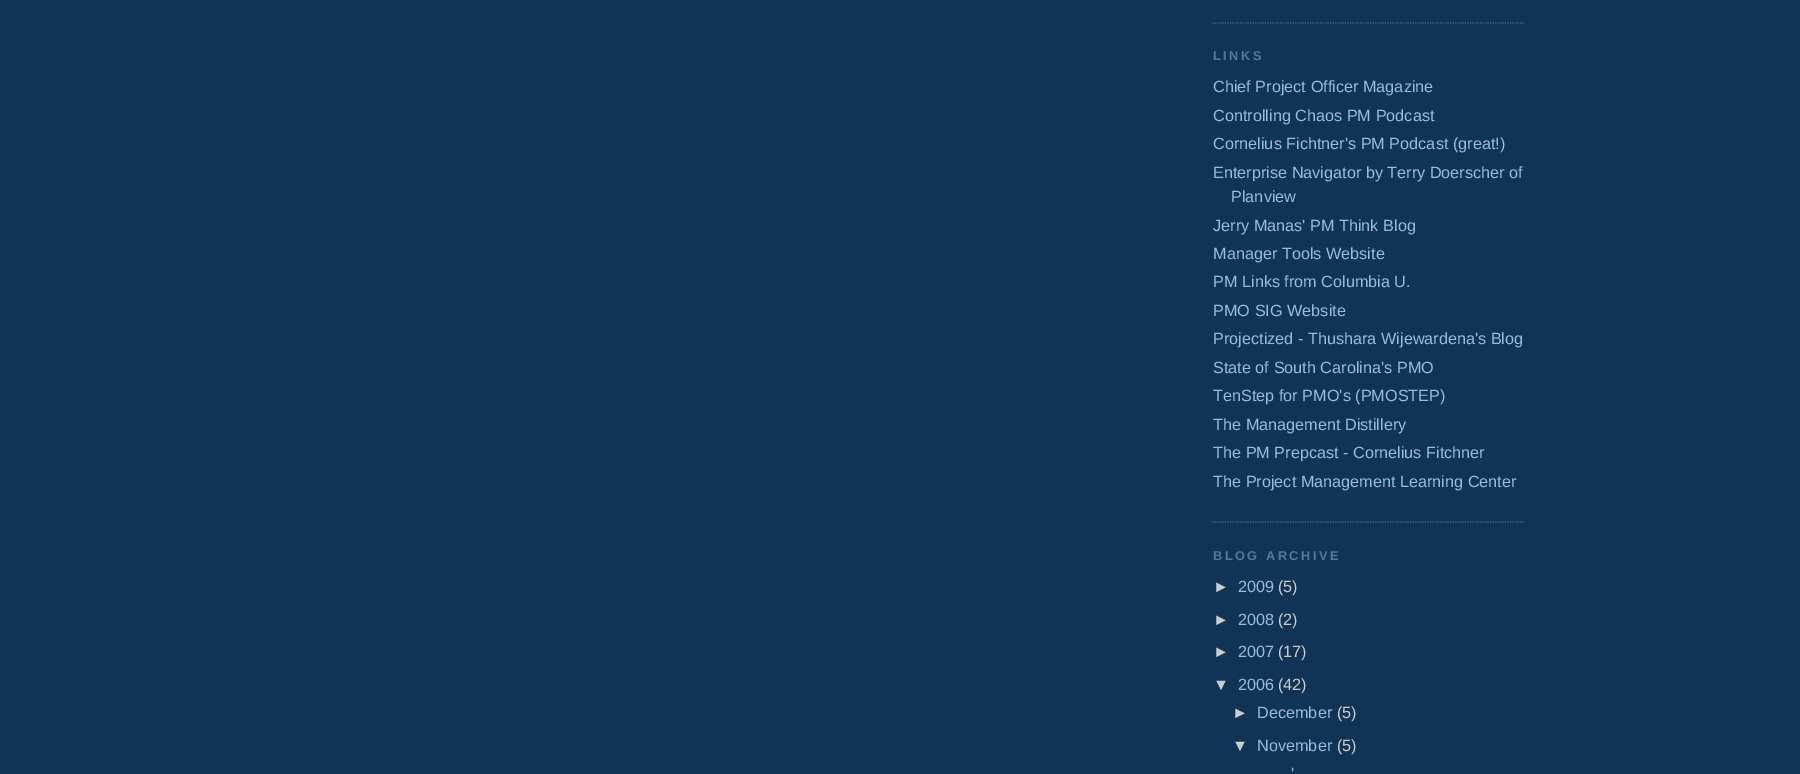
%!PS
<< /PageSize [1800 774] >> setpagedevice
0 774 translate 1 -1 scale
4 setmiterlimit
0.067 0.2 0.333 setrgbcolor
0 0 1800 774 rectfill
0.267 0.4 0.533 setrgbcolor
1.2 setlinewidth
[1.25 1.25] 0 setdash
newpath 1212.5 23 moveto 1525 23 lineto stroke
newpath 1212.5 522 moveto 1525 522 lineto stroke
/LiberationSans-Bold [12.75 0 0 -12.75 0 0] selectfont
0.333 0.467 0.6 setrgbcolor
1213 60 moveto 2.5 0 (LINKS) ashow
/LiberationSans-Regular [16.25 0 0 -16.25 0 0] selectfont
0.6 0.733 0.867 setrgbcolor
1213 92 moveto (Chief Project Officer Magazine) show
1213 121 moveto (Controlling Chaos PM Podcast) show
1213 149 moveto (Cornelius Fichtner's PM Podcast \(great!\)) show
1213 178 moveto (Enterprise Navigator by Terry Doerscher of) show
1231 202 moveto (Planview) show
1213 231 moveto (Jerry Manas' PM Think Blog) show
1213 259 moveto (Manager Tools Website) show
1213 287 moveto (PM Links from Columbia U.) show
1213 316 moveto (PMO SIG Website) show
1213 344 moveto (Projectized - Thushara Wijewardena's Blog) show
1213 373 moveto (State of South Carolina's PMO) show
1213 401 moveto (TenStep for PMO's \(PMOSTEP\)) show
1213 430 moveto (The Management Distillery) show
1213 458 moveto (The PM Prepcast - Cornelius Fitchner) show
1213 487 moveto (The Project Management Learning Center) show
/LiberationSans-Bold [12.75 0 0 -12.75 0 0] selectfont
0.333 0.467 0.6 setrgbcolor
1213 560 moveto 2.5 0 (BLOG ARCHIVE) ashow
/LiberationSans-Regular [16.25 0 0 -16.25 0 0] selectfont
0.8 setgray
1213 592 moveto (►) show
0.6 0.733 0.867 setrgbcolor
1238 592 moveto (2009) show
0.8 setgray
1278 592 moveto (\(5\)) show
1213 625 moveto (►) show
0.6 0.733 0.867 setrgbcolor
1238 625 moveto (2008) show
0.8 setgray
1278 625 moveto (\(2\)) show
1213 657 moveto (►) show
0.6 0.733 0.867 setrgbcolor
1238 657 moveto (2007) show
0.8 setgray
1278 657 moveto (\(17\)) show
1213 690 moveto (▼) show
0.6 0.733 0.867 setrgbcolor
1238 690 moveto (2006) show
0.8 setgray
1278 690 moveto (\(42\)) show
1232 718 moveto (►) show
0.6 0.733 0.867 setrgbcolor
1257 718 moveto (December) show
0.8 setgray
1337 718 moveto (\(5\)) show
1232 751 moveto (▼) show
0.6 0.733 0.867 setrgbcolor
1257 751 moveto (November) show
0.8 setgray
1337 751 moveto (\(5\)) show
0.6 0.733 0.867 setrgbcolor
1291 779 moveto (') show
showpage
